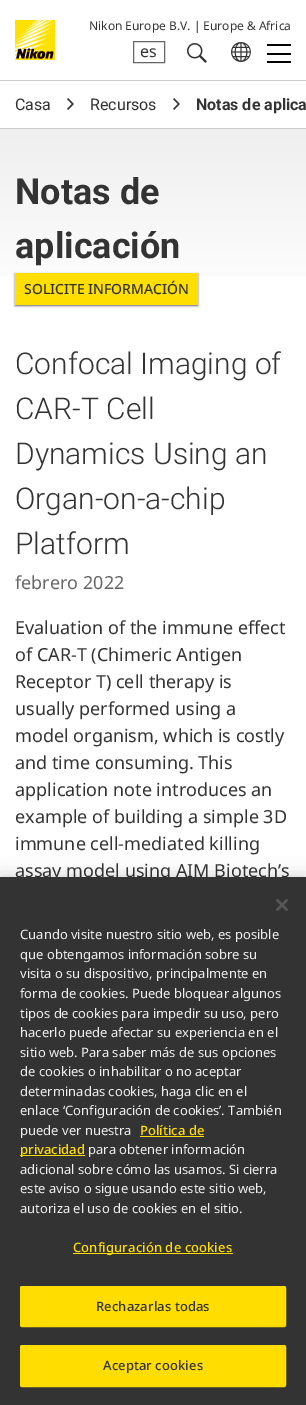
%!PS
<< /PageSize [306 1405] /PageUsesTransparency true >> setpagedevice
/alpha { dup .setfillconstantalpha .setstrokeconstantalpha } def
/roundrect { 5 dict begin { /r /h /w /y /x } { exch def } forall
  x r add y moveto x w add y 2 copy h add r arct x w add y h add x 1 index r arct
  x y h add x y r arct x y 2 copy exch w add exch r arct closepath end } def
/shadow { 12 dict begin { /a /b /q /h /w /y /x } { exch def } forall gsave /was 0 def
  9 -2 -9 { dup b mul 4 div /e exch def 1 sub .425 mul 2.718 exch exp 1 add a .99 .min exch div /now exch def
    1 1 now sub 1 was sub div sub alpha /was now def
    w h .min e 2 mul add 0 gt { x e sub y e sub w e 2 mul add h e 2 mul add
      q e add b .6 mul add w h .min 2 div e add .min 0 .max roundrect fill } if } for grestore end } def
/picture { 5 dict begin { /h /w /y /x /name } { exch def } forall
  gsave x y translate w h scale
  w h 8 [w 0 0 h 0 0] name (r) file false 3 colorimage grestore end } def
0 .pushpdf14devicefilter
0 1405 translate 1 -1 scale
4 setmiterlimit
1 setgray
0 0 306 1405 rectfill
(img1.rgb) 15 20 40 40 picture
/NotoSans-Regular [12 0 0 -12 0 0] selectfont
0.2 setgray
89 30 moveto (Nikon Europe B.V. | Europe & Africa) show
0.4 setgray
133.5 41.5 31 21 rectstroke
/NotoSans-Regular [16 0 0 -16 0 0] selectfont
0.2 setgray
140 57 moveto (es) show
(img2.rgb) 187 43 20 20 picture
(img3.rgb) 231 42 20 20 picture
0 setgray
267 44 24 2 rectfill
267 53 24 2 rectfill
267 61 24 2 rectfill
0.8 setgray
0 80 306 1 rectfill
0 128 306 1 rectfill
/Roboto-Regular [16 0 0 -16 0 0] selectfont
0.2 setgray
15 110 moveto (Casa) show
(img4.rgb) 67 98 7 12 picture
90 110 moveto (Recursos) show
(img4.rgb) 173 98 7 12 picture
/Roboto-Bold [16 0 0 -16 0 0] selectfont
196 110 moveto (Notas de aplica) show
gsave newpath 0 129 moveto 306 129 lineto 306 277 lineto 0 277 lineto closepath clip newpath
<< /ShadingType 2 /ColorSpace /DeviceRGB /Coords [153 129 153 305] /Extend [true true] /Function << /FunctionType 2 /Domain [0 1] /C0 [0.937 0.937 0.937] /C1 [1 1 1] /N 1 >> >> shfill grestore
/Roboto-Bold [36 0 0 -36 0 0] selectfont
15 204 moveto (Notas de) show
15 258 moveto (aplicación) show
0 setgray
15 274 183 32 0 1 0.6 shadow
gsave newpath 15 273 moveto 198 273 lineto 198 305 lineto 15 305 lineto closepath clip newpath
<< /ShadingType 2 /ColorSpace /DeviceRGB /Coords [107 273 107 337] /Extend [true true] /Function << /FunctionType 3 /Domain [0 1] /Functions [<< /FunctionType 2 /Domain [0 1] /C0 [1 0.871 0] /C1 [1 0.871 0] /N 1 >> << /FunctionType 2 /Domain [0 1] /C0 [1 0.871 0] /C1 [1 1 0] /N 1 >>] /Bounds [0.5] /Encode [0 1 0 1] >> >> shfill grestore
/NotoSans-Medium [14 0 0 -14 0 0] selectfont
0.2 setgray
24 294 moveto (SOLICITE INFORMACIÓN) show
/Roboto-Light [30 0 0 -30 0 0] selectfont
15 374 moveto (Confocal Imaging of) show
15 419 moveto (CAR-T Cell) show
15 464 moveto (Dynamics Using an) show
15 509 moveto (Organ-on-a-chip) show
15 554 moveto (Platform) show
/NotoSans-Regular [18 0 0 -18 0 0] selectfont
0.4 setgray
15 589 moveto (febrero 2022) show
0.2 setgray
15 634 moveto (Evaluation of the immune effect) show
15 661 moveto (of CAR-T \(Chimeric Antigen) show
15 688 moveto (Receptor T\) cell therapy is) show
15 715 moveto (usually performed using a) show
15 742 moveto (model organism, which is costly) show
15 769 moveto (and time consuming. This) show
15 796 moveto (application note introduces an) show
15 823 moveto (example of building a simple 3D) show
15 850 moveto (immune cell-mediated killing) show
15 877 moveto (assay model using AIM Biotech’s) show
0 setgray
0 877 306 528 0 9 0.2 shadow
0.2 setgray
0 877 306 528 rectfill
(img5.rgb) 276 899 12 12 picture
/NotoSans-Regular [13 0 0 -13 0 0] selectfont
0.933 setgray
20 939 moveto (Cuando visite nuestro sitio web, es posible) show
20 959 moveto (que obtengamos información sobre su) show
20 978 moveto (visita o su dispositivo, principalmente en) show
20 998 moveto (forma de cookies. Puede bloquear algunos) show
20 1018 moveto (tipos de cookies para impedir su uso, pero) show
20 1037 moveto (hacerlo puede afectar su experiencia en el) show
20 1057 moveto (sitio web. Para saber más de sus opciones) show
20 1076 moveto (de cookies o inhabilitar o no aceptar) show
20 1096 moveto (determinadas cookies, haga clic en el) show
20 1115 moveto (enlace ‘Configuración de cookies’. También) show
20 1135 moveto (puede ver nuestra) show
/NotoSans-Medium [13 0 0 -13 0 0] selectfont
1 0.867 0 setrgbcolor
140 1135 moveto (Política de) show
140 1136 64 1 rectfill
20 1155 65 1 rectfill
20 1154 moveto (privacidad) show
/NotoSans-Regular [13 0 0 -13 0 0] selectfont
0.933 setgray
88 1154 moveto (para obtener información) show
20 1174 moveto (adicional sobre cómo las usamos. Si cierra) show
20 1193 moveto (este aviso o sigue usando este sitio web,) show
20 1213 moveto (autoriza el uso de cookies en el sitio.) show
1 0.867 0 setrgbcolor
73 1253 160 1 rectfill
/NotoSans-Medium [13 0 0 -13 0 0] selectfont
73 1252 moveto 0.1 0 (Configuración de cookies) ashow
20.5 1286.5 265 40 1.5 roundrect gsave fill grestore
stroke
0.2 setgray
96 1311 moveto 0.1 0 (Rechazarlas todas) ashow
1 0.867 0 setrgbcolor
20.5 1345.5 265 41 1.5 roundrect gsave fill grestore
stroke
0.2 setgray
103 1370 moveto 0.1 0 (Aceptar cookies) ashow
.poppdf14devicefilter showpage
